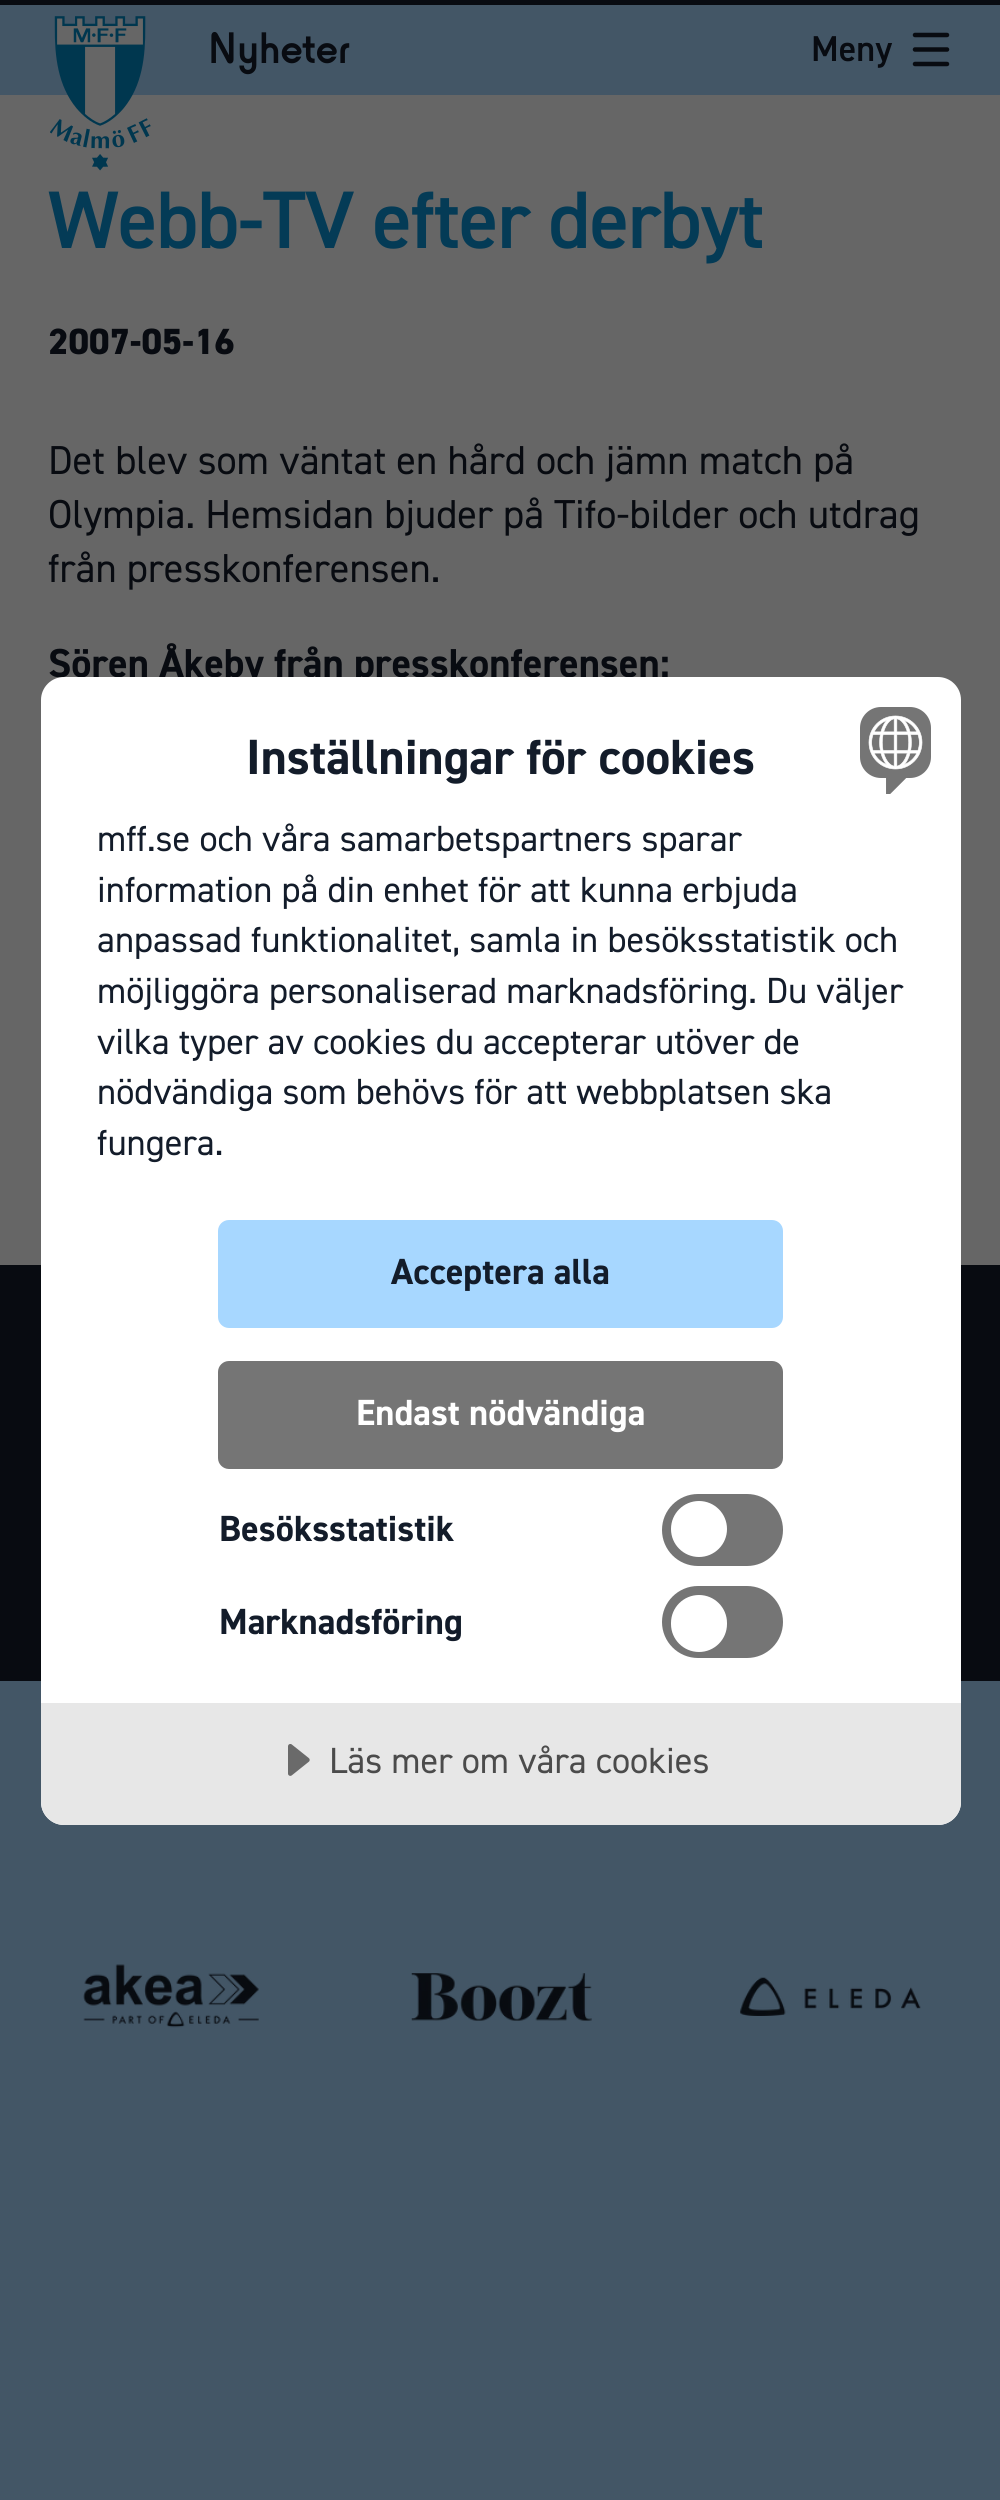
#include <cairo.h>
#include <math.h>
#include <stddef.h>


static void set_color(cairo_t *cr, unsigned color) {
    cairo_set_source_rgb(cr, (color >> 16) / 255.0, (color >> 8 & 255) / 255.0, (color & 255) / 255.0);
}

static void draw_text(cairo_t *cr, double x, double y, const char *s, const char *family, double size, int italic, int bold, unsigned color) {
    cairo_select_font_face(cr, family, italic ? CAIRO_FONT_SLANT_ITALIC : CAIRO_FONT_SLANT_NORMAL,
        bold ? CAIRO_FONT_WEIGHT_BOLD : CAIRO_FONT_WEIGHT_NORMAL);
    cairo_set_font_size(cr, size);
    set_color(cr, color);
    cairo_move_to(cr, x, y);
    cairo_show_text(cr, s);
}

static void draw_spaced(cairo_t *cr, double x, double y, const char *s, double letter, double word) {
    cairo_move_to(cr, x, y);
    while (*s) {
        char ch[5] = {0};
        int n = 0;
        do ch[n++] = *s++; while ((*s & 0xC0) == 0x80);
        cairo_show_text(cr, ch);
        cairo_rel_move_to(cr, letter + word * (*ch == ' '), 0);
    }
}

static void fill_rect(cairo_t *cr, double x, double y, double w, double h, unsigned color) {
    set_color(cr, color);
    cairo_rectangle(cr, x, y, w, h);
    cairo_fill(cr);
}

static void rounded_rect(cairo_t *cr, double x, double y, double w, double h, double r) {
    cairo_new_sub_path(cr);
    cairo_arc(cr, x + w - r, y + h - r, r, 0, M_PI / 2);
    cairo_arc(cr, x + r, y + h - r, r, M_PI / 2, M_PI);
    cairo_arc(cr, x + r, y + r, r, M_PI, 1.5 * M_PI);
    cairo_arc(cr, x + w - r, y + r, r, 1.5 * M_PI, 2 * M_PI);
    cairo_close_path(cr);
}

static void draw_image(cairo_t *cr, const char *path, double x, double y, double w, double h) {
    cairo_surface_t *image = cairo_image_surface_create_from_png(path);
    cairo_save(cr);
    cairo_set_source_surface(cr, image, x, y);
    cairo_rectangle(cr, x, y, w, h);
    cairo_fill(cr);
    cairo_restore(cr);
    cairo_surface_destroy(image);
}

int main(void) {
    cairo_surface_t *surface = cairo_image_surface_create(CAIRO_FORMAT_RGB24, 1000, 2500);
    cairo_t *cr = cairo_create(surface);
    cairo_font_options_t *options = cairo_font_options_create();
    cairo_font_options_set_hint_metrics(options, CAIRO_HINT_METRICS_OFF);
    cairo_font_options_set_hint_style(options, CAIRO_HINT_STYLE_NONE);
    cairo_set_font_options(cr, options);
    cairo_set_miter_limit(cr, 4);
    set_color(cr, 0x080B11);
    cairo_paint(cr);
    fill_rect(cr, 0, 5, 1000, 90, 0x435666);
    fill_rect(cr, 0, 95, 1000, 1170, 0x666666);
    draw_image(cr, "assets/img1.png", 50, 16, 101, 155);
    draw_text(cr, 208, 63, "Nyheter", "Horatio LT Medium", 46, 0, 0, 0x080B11);
    draw_text(cr, 811, 61, "Meny", "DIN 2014 SemiBold", 36, 0, 0, 0x080B11);
    cairo_new_path(cr);
    cairo_move_to(cr, 915, 64);
    cairo_line_to(cr, 947, 64);
    cairo_move_to(cr, 915, 35);
    cairo_line_to(cr, 947, 35);
    cairo_move_to(cr, 915, 49.5);
    cairo_line_to(cr, 947, 49.5);
    cairo_set_line_width(cr, 4.5);
    cairo_set_line_cap(cr, CAIRO_LINE_CAP_ROUND);
    cairo_set_line_join(cr, CAIRO_LINE_JOIN_ROUND);
    cairo_stroke(cr);
    cairo_set_font_size(cr, 81.75);
    set_color(cr, 0x043B56);
    draw_spaced(cr, 48, 248, "Webb-TV efter derbyt", -1.25, 0);
    draw_text(cr, 48, 354, "2007-05-16", "DIN 2014 ExtraBold", 36.5, 0, 0, 0x080B11);
    draw_text(cr, 48, 474, "Det blev som väntat en hård och jämn match på", "DIN 2014", 40.5, 0, 0, 0x080B11);
    draw_text(cr, 48, 528, "Olympia. Hemsidan bjuder på Tifo-bilder och utdrag", "DIN 2014", 40.5, 0, 0, 0x080B11);
    draw_text(cr, 48, 582, "från presskonferensen.", "DIN 2014", 40.5, 0, 0, 0x080B11);
    draw_text(cr, 48, 677, "Sören Åkeby från presskonferensen:", "DIN 2014", 40.5, 0, 1, 0x080B11);
    fill_rect(cr, 0, 1681, 1000, 819, 0x435666);
    set_color(cr, 0xFFFFFF);
    rounded_rect(cr, 41, 677, 920, 1148, 23);
    cairo_fill(cr);
    draw_image(cr, "assets/img2.png", 860, 707, 71, 87);
    draw_text(cr, 246, 774, "Inställningar för cookies", "DIN 2014", 49.6, 0, 1, 0x131C2A);
    draw_text(cr, 97, 851, "mff.se och våra samarbetspartners sparar", "DIN 2014", 36.45, 0, 0, 0x131C2A);
    draw_text(cr, 97, 902, "information på din enhet för att kunna erbjuda", "DIN 2014", 36.45, 0, 0, 0x131C2A);
    draw_text(cr, 97, 952, "anpassad funktionalitet, samla in besöksstatistik och", "DIN 2014", 36.45, 0, 0, 0x131C2A);
    draw_text(cr, 97, 1003, "möjliggöra personaliserad marknadsföring. Du väljer", "DIN 2014", 36.45, 0, 0, 0x131C2A);
    draw_text(cr, 97, 1054, "vilka typer av cookies du accepterar utöver de", "DIN 2014", 36.45, 0, 0, 0x131C2A);
    draw_text(cr, 97, 1104, "nödvändiga som behövs för att webbplatsen ska", "DIN 2014", 36.45, 0, 0, 0x131C2A);
    draw_text(cr, 97, 1155, "fungera.", "DIN 2014", 36.45, 0, 0, 0x131C2A);
    set_color(cr, 0xA7D7FF);
    rounded_rect(cr, 218, 1220, 565, 108, 11);
    cairo_fill(cr);
    draw_text(cr, 391, 1284, "Acceptera alla", "DIN 2014", 36.45, 0, 1, 0x131C2A);
    set_color(cr, 0x757575);
    rounded_rect(cr, 218, 1361, 565, 108, 11);
    cairo_fill(cr);
    draw_text(cr, 356, 1425, "Endast nödvändiga", "DIN 2014", 36.45, 0, 1, 0xFFFFFF);
    draw_text(cr, 219, 1541, "Besöksstatistik", "DIN 2014", 36.45, 0, 1, 0x131C2A);
    set_color(cr, 0x757575);
    rounded_rect(cr, 662, 1494, 121, 72, 36);
    cairo_fill(cr);
    set_color(cr, 0xFFFFFF);
    cairo_arc(cr, 699, 1529, 28, 0, 2 * M_PI);
    cairo_fill(cr);
    draw_text(cr, 219, 1634, "Marknadsföring", "DIN 2014", 36.45, 0, 1, 0x131C2A);
    set_color(cr, 0x757575);
    rounded_rect(cr, 662, 1586, 121, 72, 36);
    cairo_fill(cr);
    set_color(cr, 0xFFFFFF);
    rounded_rect(cr, 671, 1595, 56, 57, 28);
    cairo_fill(cr);
    set_color(cr, 0xE7E7E7);
    cairo_new_path(cr);
    cairo_move_to(cr, 41, 1703);
    cairo_line_to(cr, 961, 1703);
    cairo_line_to(cr, 961, 1802);
    cairo_curve_to(cr, 961, 1814.5, 950.5, 1825, 938, 1825);
    cairo_line_to(cr, 64, 1825);
    cairo_curve_to(cr, 51.5, 1825, 41, 1814.5, 41, 1802);
    cairo_close_path(cr);
    cairo_fill(cr);
    draw_image(cr, "assets/img3.png", 288, 1744, 22, 32);
    draw_text(cr, 329, 1773, "Läs mer om våra cookies", "DIN 2014", 36.45, 0, 0, 0x4B4B4B);
    draw_image(cr, "assets/img4.png", 83, 1964, 176, 64);
    draw_image(cr, "assets/img5.png", 411, 1973, 181, 48);
    draw_image(cr, "assets/img6.png", 740, 1977, 181, 39);
    cairo_surface_write_to_png(surface, "output.png");
    cairo_font_options_destroy(options);
    cairo_destroy(cr);
    cairo_surface_destroy(surface);
    return 0;
}
